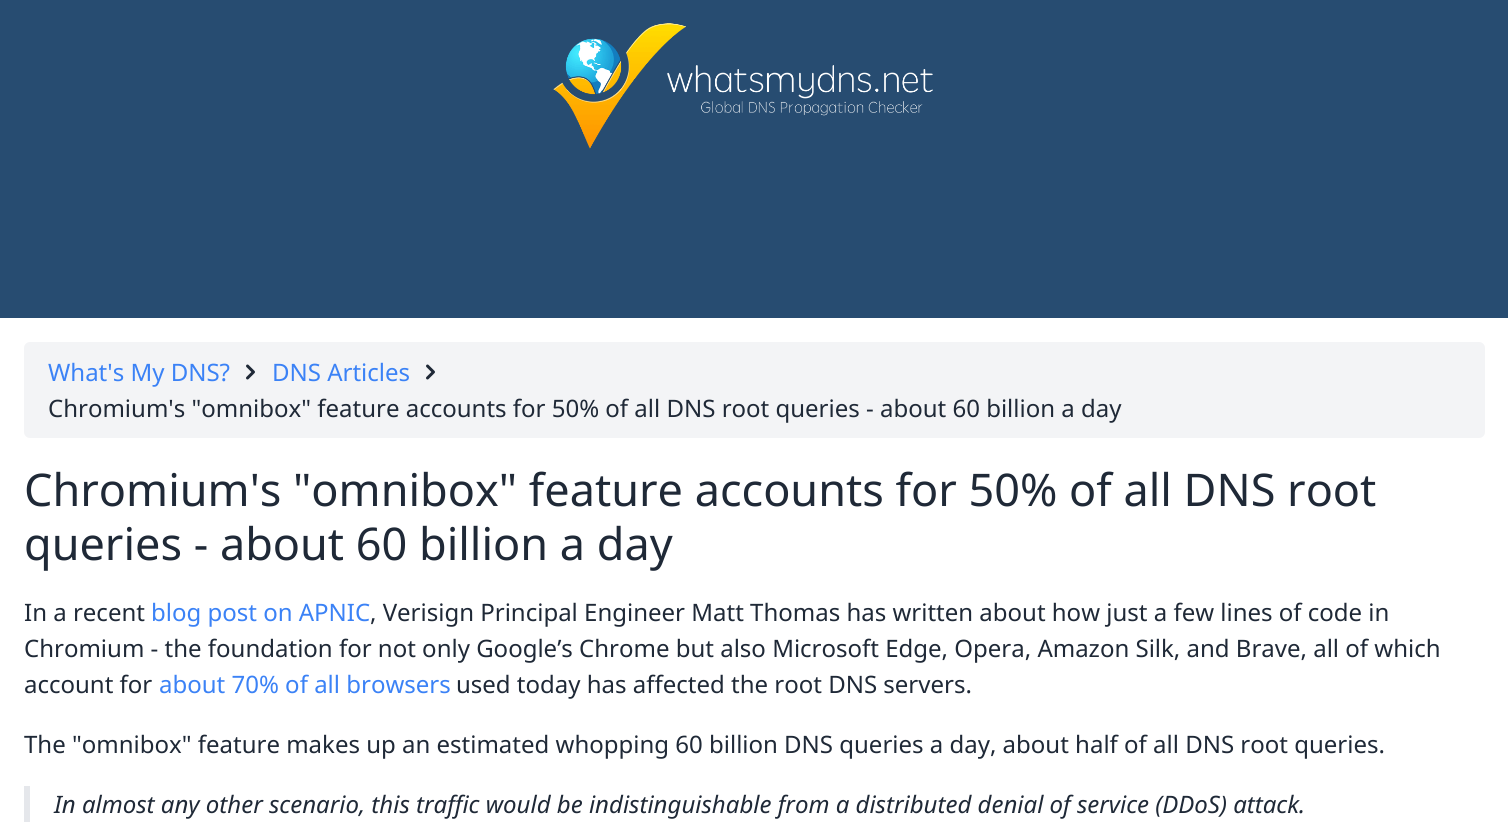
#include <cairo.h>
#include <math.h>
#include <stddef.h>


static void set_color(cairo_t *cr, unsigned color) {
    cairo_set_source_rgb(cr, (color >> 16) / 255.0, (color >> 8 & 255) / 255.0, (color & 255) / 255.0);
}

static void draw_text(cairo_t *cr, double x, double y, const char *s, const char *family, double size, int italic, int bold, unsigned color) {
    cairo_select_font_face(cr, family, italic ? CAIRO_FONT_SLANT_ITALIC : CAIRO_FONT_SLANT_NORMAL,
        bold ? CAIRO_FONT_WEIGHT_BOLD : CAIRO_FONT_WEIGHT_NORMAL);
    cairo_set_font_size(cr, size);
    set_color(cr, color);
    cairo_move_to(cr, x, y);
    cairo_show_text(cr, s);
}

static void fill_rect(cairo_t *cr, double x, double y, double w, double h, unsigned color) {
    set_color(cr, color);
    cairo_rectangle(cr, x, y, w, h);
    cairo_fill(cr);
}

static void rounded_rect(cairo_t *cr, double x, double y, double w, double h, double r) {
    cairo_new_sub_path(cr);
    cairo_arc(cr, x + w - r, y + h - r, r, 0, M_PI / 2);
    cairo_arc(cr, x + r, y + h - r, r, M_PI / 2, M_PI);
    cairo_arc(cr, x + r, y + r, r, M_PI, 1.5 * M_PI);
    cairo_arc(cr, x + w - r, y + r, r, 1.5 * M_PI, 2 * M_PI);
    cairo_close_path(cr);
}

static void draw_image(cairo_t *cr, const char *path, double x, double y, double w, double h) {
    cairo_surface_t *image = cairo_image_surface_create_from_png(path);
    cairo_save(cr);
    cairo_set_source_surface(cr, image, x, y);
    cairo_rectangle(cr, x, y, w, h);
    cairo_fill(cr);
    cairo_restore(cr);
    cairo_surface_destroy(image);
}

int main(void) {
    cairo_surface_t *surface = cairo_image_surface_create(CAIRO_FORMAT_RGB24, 1508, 839);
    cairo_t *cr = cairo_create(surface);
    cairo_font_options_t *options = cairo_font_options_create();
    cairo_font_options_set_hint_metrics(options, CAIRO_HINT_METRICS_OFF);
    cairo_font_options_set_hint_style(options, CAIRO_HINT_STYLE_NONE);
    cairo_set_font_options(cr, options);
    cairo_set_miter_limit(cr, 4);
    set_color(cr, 0x274C71);
    cairo_paint(cr);
    draw_image(cr, "assets/img1.png", 553, 23, 380, 126);
    fill_rect(cr, 0, 318, 1508, 521, 0xFFFFFF);
    set_color(cr, 0xF3F4F6);
    rounded_rect(cr, 24, 342, 1461, 96, 6);
    cairo_fill(cr);
    draw_text(cr, 48, 381, "What's My DNS?", "Noto Sans", 24, 0, 0, 0x3B82F6);
    draw_image(cr, "assets/img2.png", 246, 364, 9, 16);
    draw_text(cr, 272, 381, "DNS Articles", "Noto Sans", 24, 0, 0, 0x3B82F6);
    draw_image(cr, "assets/img2.png", 426, 364, 9, 16);
    draw_text(cr, 48, 417, "Chromium's \"omnibox\" feature accounts for 50% of all DNS root queries - about 60 billion a day", "Noto Sans", 24, 0, 0, 0x1F2937);
    draw_text(cr, 24, 506, "Chromium's \"omnibox\" feature accounts for 50% of all DNS root", "Noto Sans", 45, 0, 0, 0x1F2937);
    draw_text(cr, 24, 560, "queries - about 60 billion a day", "Noto Sans", 45, 0, 0, 0x1F2937);
    draw_text(cr, 24, 621, "In a recent", "Noto Sans", 24, 0, 0, 0x1F2937);
    draw_text(cr, 151, 621, "blog post on APNIC", "Noto Sans", 24, 0, 0, 0x3B82F6);
    draw_text(cr, 370, 621, ", Verisign Principal Engineer Matt Thomas has written about how just a few lines of code in", "Noto Sans", 24, 0, 0, 0x1F2937);
    draw_text(cr, 24, 657, "Chromium - the foundation for not only Google’s Chrome but also Microsoft Edge, Opera, Amazon Silk, and Brave, all of which", "Noto Sans", 24, 0, 0, 0x1F2937);
    draw_text(cr, 24, 693, "account for", "Noto Sans", 24, 0, 0, 0x1F2937);
    draw_text(cr, 159, 693, "about 70% of all browsers", "Noto Sans", 24, 0, 0, 0x3B82F6);
    draw_text(cr, 456, 693, "used today has affected the root DNS servers.", "Noto Sans", 24, 0, 0, 0x1F2937);
    draw_text(cr, 24, 753, "The \"omnibox\" feature makes up an estimated whopping 60 billion DNS queries a day, about half of all DNS root queries.", "Noto Sans", 24, 0, 0, 0x1F2937);
    fill_rect(cr, 24, 786, 6, 36, 0xE5E7EB);
    draw_text(cr, 54, 813, "In almost any other scenario, this traffic would be indistinguishable from a distributed denial of service (DDoS) attack.", "Noto Sans", 24, 1, 0, 0x1F2937);
    cairo_surface_write_to_png(surface, "output.png");
    cairo_font_options_destroy(options);
    cairo_destroy(cr);
    cairo_surface_destroy(surface);
    return 0;
}
